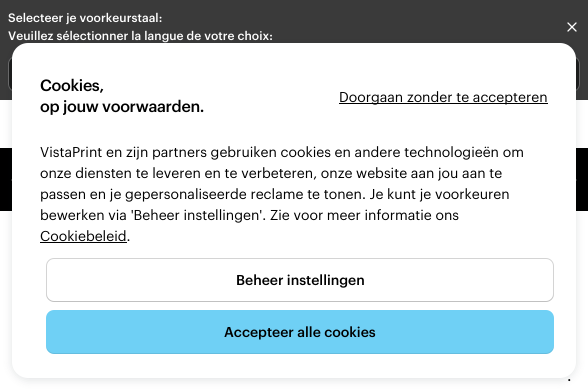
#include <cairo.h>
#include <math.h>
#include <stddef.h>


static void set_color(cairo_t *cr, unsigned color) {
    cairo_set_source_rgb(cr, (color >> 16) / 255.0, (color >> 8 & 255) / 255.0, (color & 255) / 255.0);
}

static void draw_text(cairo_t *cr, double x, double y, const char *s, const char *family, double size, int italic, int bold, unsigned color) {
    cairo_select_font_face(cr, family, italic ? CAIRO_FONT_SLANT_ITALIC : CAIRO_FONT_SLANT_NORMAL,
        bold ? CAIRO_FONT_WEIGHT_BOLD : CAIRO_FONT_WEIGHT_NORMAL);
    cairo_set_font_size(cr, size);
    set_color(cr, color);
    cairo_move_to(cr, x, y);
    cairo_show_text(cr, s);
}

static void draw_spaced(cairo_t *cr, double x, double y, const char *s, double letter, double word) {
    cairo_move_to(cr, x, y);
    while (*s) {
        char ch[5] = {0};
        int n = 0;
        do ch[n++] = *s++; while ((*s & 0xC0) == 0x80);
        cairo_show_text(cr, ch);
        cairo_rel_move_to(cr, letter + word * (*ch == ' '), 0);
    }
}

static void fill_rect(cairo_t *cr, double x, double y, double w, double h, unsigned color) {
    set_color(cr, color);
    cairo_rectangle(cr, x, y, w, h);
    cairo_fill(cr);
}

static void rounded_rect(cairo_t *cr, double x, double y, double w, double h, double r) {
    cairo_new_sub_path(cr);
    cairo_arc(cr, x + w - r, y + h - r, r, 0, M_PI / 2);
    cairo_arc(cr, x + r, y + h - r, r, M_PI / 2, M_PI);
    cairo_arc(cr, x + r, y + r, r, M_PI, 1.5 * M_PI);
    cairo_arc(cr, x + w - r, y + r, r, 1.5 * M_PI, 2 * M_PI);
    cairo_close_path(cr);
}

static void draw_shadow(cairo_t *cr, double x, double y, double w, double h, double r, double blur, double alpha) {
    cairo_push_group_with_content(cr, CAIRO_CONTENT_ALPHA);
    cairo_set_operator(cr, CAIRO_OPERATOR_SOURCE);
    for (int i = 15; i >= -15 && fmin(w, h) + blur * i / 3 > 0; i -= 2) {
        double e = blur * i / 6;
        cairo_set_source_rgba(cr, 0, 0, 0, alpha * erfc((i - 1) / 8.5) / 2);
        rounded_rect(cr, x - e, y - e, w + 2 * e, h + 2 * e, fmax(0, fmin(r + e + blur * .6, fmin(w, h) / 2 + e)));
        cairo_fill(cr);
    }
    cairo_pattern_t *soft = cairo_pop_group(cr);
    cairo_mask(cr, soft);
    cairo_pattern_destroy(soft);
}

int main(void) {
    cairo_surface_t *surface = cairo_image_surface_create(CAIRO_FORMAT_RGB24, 588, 390);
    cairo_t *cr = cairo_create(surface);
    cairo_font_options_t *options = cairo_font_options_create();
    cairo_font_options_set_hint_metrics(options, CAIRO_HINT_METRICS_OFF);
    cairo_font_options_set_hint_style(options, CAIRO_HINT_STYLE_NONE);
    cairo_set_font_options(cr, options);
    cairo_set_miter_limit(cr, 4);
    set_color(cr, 0xFFFFFF);
    cairo_paint(cr);
    fill_rect(cr, 0, 0, 588, 100, 0x3A3A3A);
    cairo_select_font_face(cr, "Graphik Medium", CAIRO_FONT_SLANT_NORMAL, CAIRO_FONT_WEIGHT_NORMAL);
    cairo_set_font_size(cr, 12);
    set_color(cr, 0xFFFFFF);
    draw_spaced(cr, 8, 22, "Selecteer je voorkeurstaal:", 0.05, 0);
    draw_spaced(cr, 8, 40, "Veuillez sélectionner la langue de votre choix:", 0.05, 0);
    cairo_new_path(cr);
    cairo_move_to(cr, 576, 23);
    cairo_line_to(cr, 568, 31);
    cairo_move_to(cr, 568, 23);
    cairo_line_to(cr, 576, 31);
    cairo_set_line_width(cr, 1.3);
    cairo_set_line_cap(cr, CAIRO_LINE_CAP_ROUND);
    cairo_set_line_join(cr, CAIRO_LINE_JOIN_ROUND);
    cairo_stroke(cr);
    set_color(cr, 0x1D1D1D);
    rounded_rect(cr, 8, 56, 280, 36, 8);
    cairo_fill(cr);
    rounded_rect(cr, 8.5, 56.5, 279, 35, 7.5);
    cairo_set_source_rgba(cr, 1, 1, 1, 0.35);
    cairo_set_line_width(cr, 1);
    cairo_set_line_cap(cr, CAIRO_LINE_CAP_BUTT);
    cairo_set_line_join(cr, CAIRO_LINE_JOIN_MITER);
    cairo_stroke(cr);
    cairo_set_source_rgba(cr, 0, 0, 0, 0.09);
    cairo_new_path(cr);
    cairo_move_to(cr, 8, 83);
    cairo_line_to(cr, 8, 84);
    cairo_curve_to(cr, 8, 88, 12, 92, 16, 92);
    cairo_line_to(cr, 280, 92);
    cairo_curve_to(cr, 284, 92, 288, 88, 288, 84);
    cairo_line_to(cr, 288, 83);
    cairo_curve_to(cr, 288, 87, 284, 91, 280, 91);
    cairo_line_to(cr, 16, 91);
    cairo_curve_to(cr, 12, 91, 8, 87, 8, 83);
    cairo_close_path(cr);
    cairo_fill(cr);
    set_color(cr, 0x1D1D1D);
    rounded_rect(cr, 300, 56, 280, 36, 8);
    cairo_fill(cr);
    rounded_rect(cr, 300.5, 56.5, 279, 35, 7.5);
    cairo_set_source_rgba(cr, 1, 1, 1, 0.35);
    cairo_stroke(cr);
    cairo_set_source_rgba(cr, 0, 0, 0, 0.09);
    cairo_new_path(cr);
    cairo_move_to(cr, 300, 83);
    cairo_line_to(cr, 300, 84);
    cairo_curve_to(cr, 300, 88, 304, 92, 308, 92);
    cairo_line_to(cr, 572, 92);
    cairo_curve_to(cr, 576, 92, 580, 88, 580, 84);
    cairo_line_to(cr, 580, 83);
    cairo_curve_to(cr, 580, 87, 576, 91, 572, 91);
    cairo_line_to(cr, 308, 91);
    cairo_curve_to(cr, 304, 91, 300, 87, 300, 83);
    cairo_close_path(cr);
    cairo_fill(cr);
    fill_rect(cr, 0, 148, 588, 63, 0x000000);
    cairo_new_path(cr);
    cairo_move_to(cr, 17.5, 185);
    cairo_line_to(cr, 12.5, 180);
    cairo_line_to(cr, 17.5, 175);
    set_color(cr, 0xFFFFFF);
    cairo_set_line_width(cr, 1.7);
    cairo_set_line_cap(cr, CAIRO_LINE_CAP_ROUND);
    cairo_set_line_join(cr, CAIRO_LINE_JOIN_ROUND);
    cairo_stroke(cr);
    cairo_new_path(cr);
    cairo_move_to(cr, 570.5, 185);
    cairo_line_to(cr, 575.5, 180);
    cairo_line_to(cr, 570.5, 175);
    cairo_stroke(cr);
    draw_text(cr, 567, 381, ".", "Graphik", 16, 0, 0, 0x000000);
    set_color(cr, 0x00111A);
    draw_shadow(cr, 12, 45, 564, 335, 16, 5, 0.12);
    set_color(cr, 0xFFFFFF);
    rounded_rect(cr, 12, 43, 564, 335, 16);
    cairo_fill(cr);
    cairo_select_font_face(cr, "Graphik Medium", CAIRO_FONT_SLANT_NORMAL, CAIRO_FONT_WEIGHT_NORMAL);
    set_color(cr, 0x000000);
    draw_spaced(cr, 40, 91, "Cookies,", -0.3, 0);
    draw_spaced(cr, 40, 112, "op jouw voorwaarden.", -0.3, 0);
    fill_rect(cr, 339, 103, 209, 1, 0x000000);
    draw_text(cr, 339, 102, "Doorgaan zonder te accepteren", "Graphik", 14, 0, 0, 0x000000);
    draw_text(cr, 40, 157, "VistaPrint en zijn partners gebruiken cookies en andere technologieën om", "Graphik", 14, 0, 0, 0x000000);
    draw_text(cr, 40, 178, "onze diensten te leveren en te verbeteren, onze website aan jou aan te", "Graphik", 14, 0, 0, 0x000000);
    draw_text(cr, 40, 199, "passen en je gepersonaliseerde reclame te tonen. Je kunt je voorkeuren", "Graphik", 14, 0, 0, 0x000000);
    draw_text(cr, 40, 220, "bewerken via 'Beheer instellingen'. Zie voor meer informatie ons", "Graphik", 14, 0, 0, 0x000000);
    draw_text(cr, 40, 241, "Cookiebeleid.", "Graphik", 14, 0, 0, 0x000000);
    fill_rect(cr, 40, 242, 87, 1, 0x000000);
    rounded_rect(cr, 46.5, 258.5, 507, 43, 7.5);
    set_color(cr, 0xD4D4D4);
    cairo_set_line_width(cr, 1);
    cairo_set_line_cap(cr, CAIRO_LINE_CAP_BUTT);
    cairo_set_line_join(cr, CAIRO_LINE_JOIN_MITER);
    cairo_stroke(cr);
    cairo_set_source_rgba(cr, 0, 0, 0, 0.09);
    cairo_new_path(cr);
    cairo_move_to(cr, 46, 293);
    cairo_line_to(cr, 46, 294);
    cairo_curve_to(cr, 46, 298, 50, 302, 54, 302);
    cairo_line_to(cr, 546, 302);
    cairo_curve_to(cr, 550, 302, 554, 298, 554, 294);
    cairo_line_to(cr, 554, 293);
    cairo_curve_to(cr, 554, 297, 550, 301, 546, 301);
    cairo_line_to(cr, 54, 301);
    cairo_curve_to(cr, 50, 301, 46, 297, 46, 293);
    cairo_close_path(cr);
    cairo_fill(cr);
    draw_text(cr, 236, 285, "Beheer instellingen", "Graphik Medium", 14, 0, 0, 0x000000);
    set_color(cr, 0x6FD0F5);
    rounded_rect(cr, 46, 310, 508, 44, 8);
    cairo_fill(cr);
    cairo_set_source_rgba(cr, 0, 0, 0, 0.09);
    cairo_new_path(cr);
    cairo_move_to(cr, 46, 345);
    cairo_line_to(cr, 46, 346);
    cairo_curve_to(cr, 46, 350, 50, 354, 54, 354);
    cairo_line_to(cr, 546, 354);
    cairo_curve_to(cr, 550, 354, 554, 350, 554, 346);
    cairo_line_to(cr, 554, 345);
    cairo_curve_to(cr, 554, 349, 550, 353, 546, 353);
    cairo_line_to(cr, 54, 353);
    cairo_curve_to(cr, 50, 353, 46, 349, 46, 345);
    cairo_close_path(cr);
    cairo_fill(cr);
    draw_text(cr, 224, 337, "Accepteer alle cookies", "Graphik Medium", 14, 0, 0, 0x000000);
    cairo_surface_write_to_png(surface, "output.png");
    cairo_font_options_destroy(options);
    cairo_destroy(cr);
    cairo_surface_destroy(surface);
    return 0;
}
